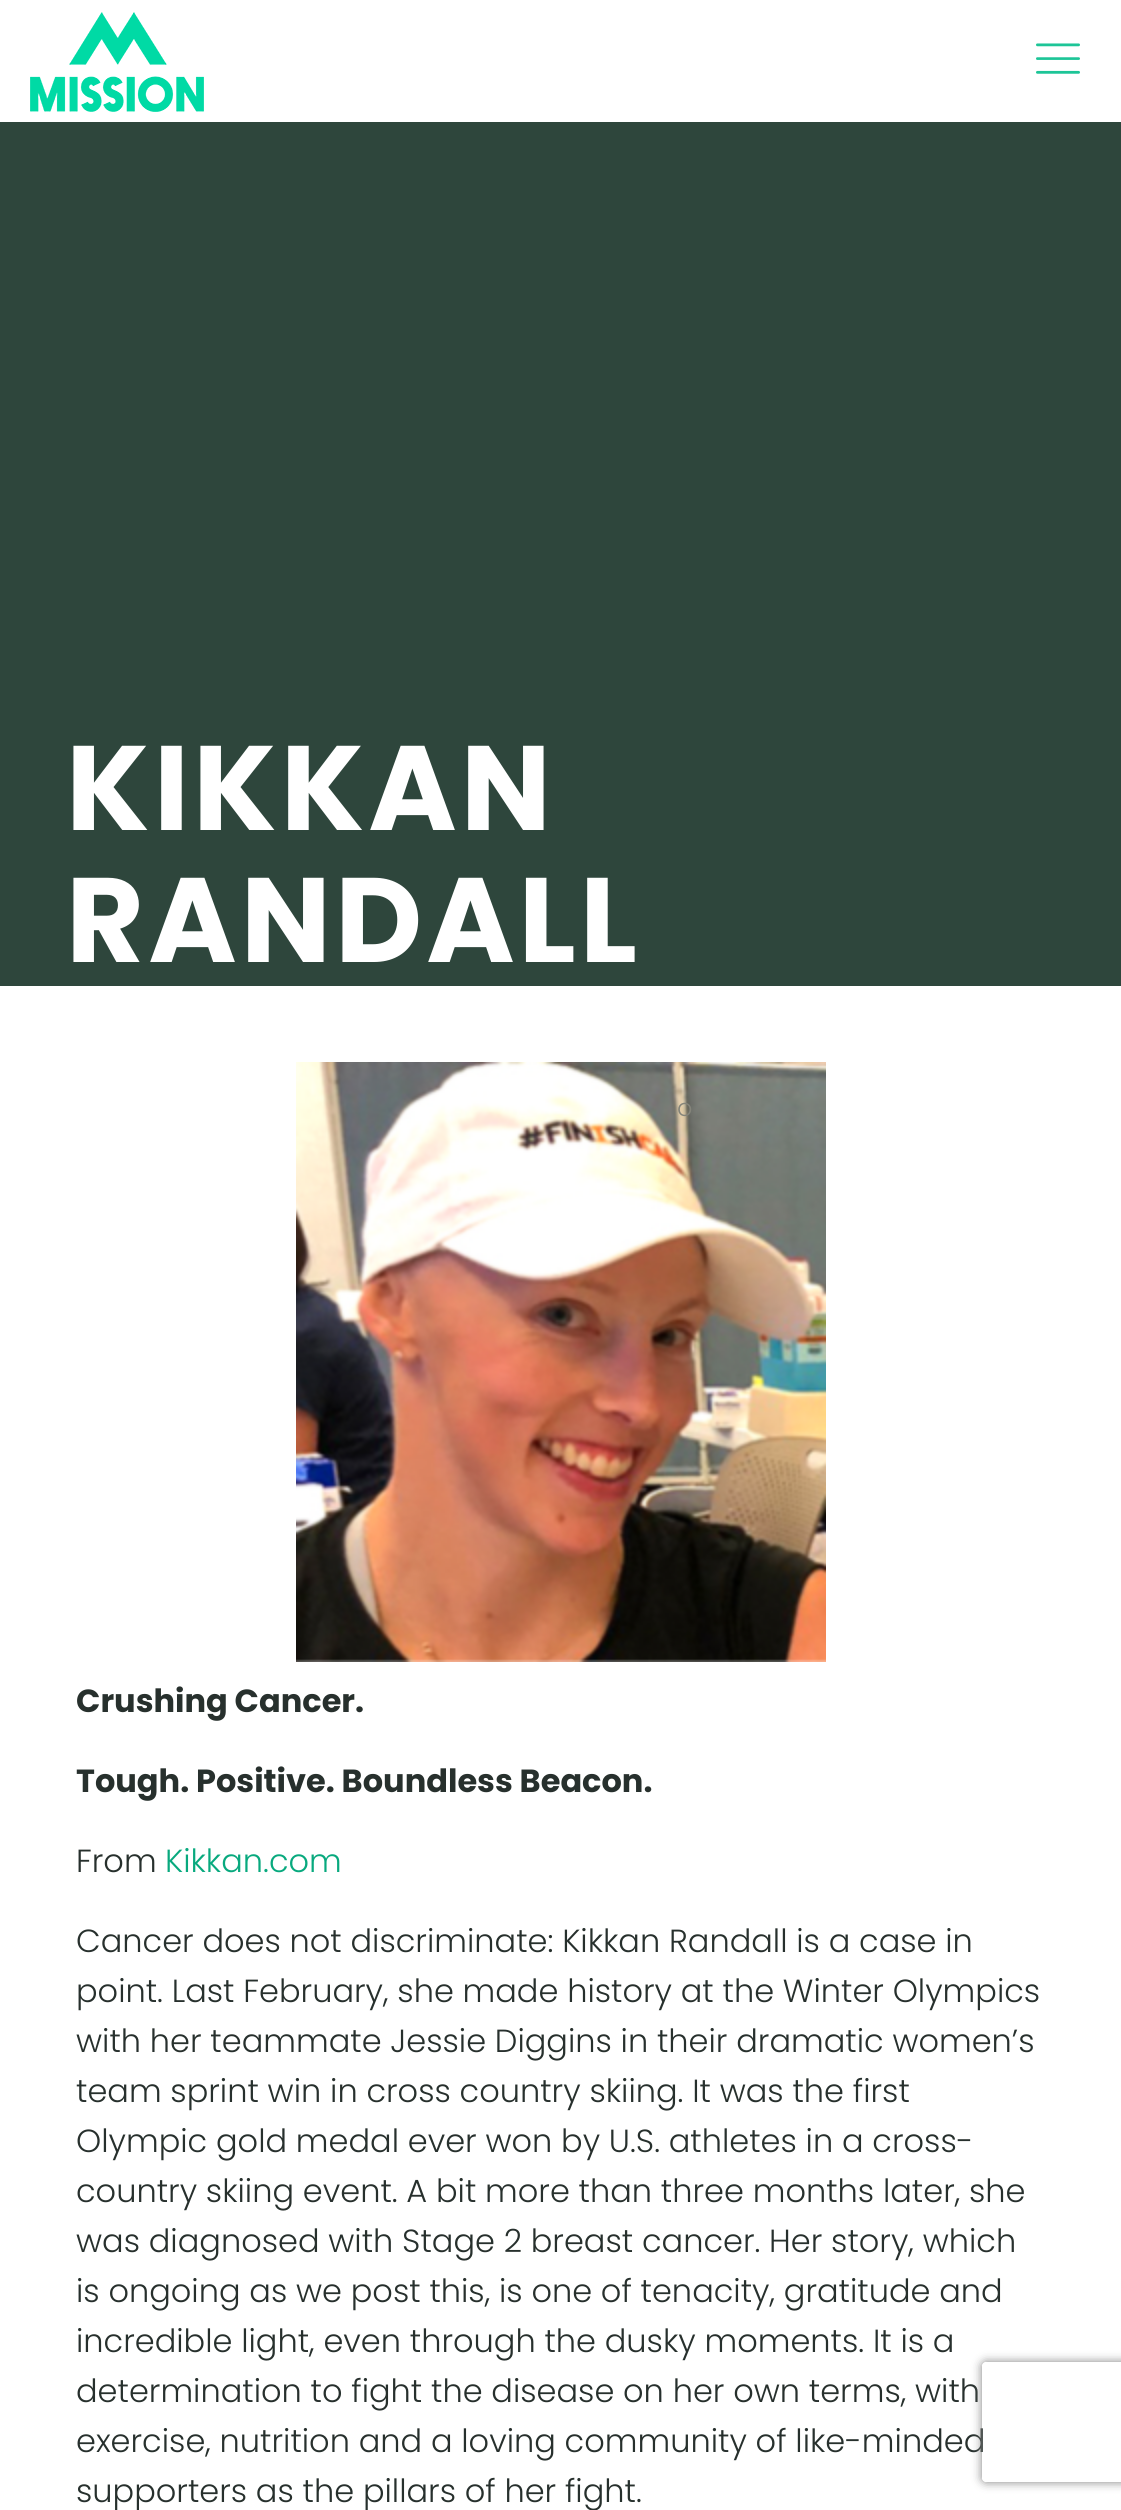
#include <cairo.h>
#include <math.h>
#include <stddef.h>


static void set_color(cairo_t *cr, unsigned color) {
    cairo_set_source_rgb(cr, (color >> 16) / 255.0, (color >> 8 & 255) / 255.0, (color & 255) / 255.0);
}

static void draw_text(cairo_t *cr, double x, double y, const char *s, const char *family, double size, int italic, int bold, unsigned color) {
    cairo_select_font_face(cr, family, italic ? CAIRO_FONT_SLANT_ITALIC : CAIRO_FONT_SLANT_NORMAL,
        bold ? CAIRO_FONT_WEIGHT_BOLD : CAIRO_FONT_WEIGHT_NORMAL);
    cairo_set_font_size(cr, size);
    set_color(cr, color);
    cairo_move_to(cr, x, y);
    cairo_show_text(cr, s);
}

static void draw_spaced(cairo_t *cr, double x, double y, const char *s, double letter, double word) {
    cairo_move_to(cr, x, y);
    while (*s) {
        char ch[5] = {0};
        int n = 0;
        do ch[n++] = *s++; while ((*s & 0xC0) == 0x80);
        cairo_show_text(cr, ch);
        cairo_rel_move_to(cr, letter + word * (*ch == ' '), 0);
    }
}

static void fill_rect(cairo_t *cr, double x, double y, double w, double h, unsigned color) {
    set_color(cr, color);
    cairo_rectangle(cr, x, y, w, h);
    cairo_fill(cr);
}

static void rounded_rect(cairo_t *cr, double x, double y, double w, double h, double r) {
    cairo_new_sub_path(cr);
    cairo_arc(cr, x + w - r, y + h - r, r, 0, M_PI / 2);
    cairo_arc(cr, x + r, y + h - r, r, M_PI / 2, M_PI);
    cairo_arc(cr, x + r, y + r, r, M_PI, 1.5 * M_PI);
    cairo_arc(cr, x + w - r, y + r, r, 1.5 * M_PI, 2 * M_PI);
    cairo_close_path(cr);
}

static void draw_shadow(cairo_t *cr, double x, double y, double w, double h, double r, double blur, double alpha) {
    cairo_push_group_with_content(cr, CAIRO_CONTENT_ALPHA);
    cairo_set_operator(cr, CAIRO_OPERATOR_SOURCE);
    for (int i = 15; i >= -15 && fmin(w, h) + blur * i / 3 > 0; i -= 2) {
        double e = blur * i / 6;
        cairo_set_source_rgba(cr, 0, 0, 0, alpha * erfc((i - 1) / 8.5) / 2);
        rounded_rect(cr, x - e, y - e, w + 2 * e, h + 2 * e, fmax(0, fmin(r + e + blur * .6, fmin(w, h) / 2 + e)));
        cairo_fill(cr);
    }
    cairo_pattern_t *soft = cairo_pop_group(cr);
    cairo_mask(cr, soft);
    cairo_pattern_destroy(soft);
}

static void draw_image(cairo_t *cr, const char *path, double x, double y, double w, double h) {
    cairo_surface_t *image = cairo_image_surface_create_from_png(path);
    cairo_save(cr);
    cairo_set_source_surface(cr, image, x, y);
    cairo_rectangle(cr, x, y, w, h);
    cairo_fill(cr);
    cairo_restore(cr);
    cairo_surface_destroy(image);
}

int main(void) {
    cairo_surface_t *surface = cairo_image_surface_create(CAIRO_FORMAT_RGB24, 1121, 2510);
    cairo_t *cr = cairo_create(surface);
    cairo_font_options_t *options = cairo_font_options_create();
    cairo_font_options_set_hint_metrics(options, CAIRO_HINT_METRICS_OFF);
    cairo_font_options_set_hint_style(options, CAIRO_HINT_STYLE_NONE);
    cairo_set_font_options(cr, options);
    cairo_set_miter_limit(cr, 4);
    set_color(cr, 0xFFFFFF);
    cairo_paint(cr);
    draw_image(cr, "assets/img1.png", 30, 12, 174, 100);
    draw_image(cr, "assets/img2.png", 1036, 43, 44, 31);
    fill_rect(cr, 0, 122, 1121, 864, 0x2E463C);
    cairo_select_font_face(cr, "Poppins", CAIRO_FONT_SLANT_NORMAL, CAIRO_FONT_WEIGHT_BOLD);
    cairo_set_font_size(cr, 120);
    set_color(cr, 0xFFFFFF);
    draw_spaced(cr, 66, 830, "KIKKAN", 4, 0);
    draw_spaced(cr, 66, 962, "RANDALL", 4, 0);
    draw_image(cr, "assets/img3.png", 296, 1062, 530, 600);
    draw_text(cr, 677, 1116, "o", "Poppins Light", 24, 0, 0, 0x84847A);
    draw_text(cr, 76, 1712, "Crushing Cancer.", "Poppins", 32, 0, 1, 0x27302D);
    draw_text(cr, 76, 1792, "Tough. Positive. Boundless Beacon.", "Poppins", 32, 0, 1, 0x27302D);
    draw_text(cr, 76, 1872, "From", "Poppins Light", 32, 0, 0, 0x27302D);
    draw_text(cr, 165, 1872, "Kikkan.com", "Poppins Light", 32, 0, 0, 0x08A97E);
    draw_text(cr, 76, 1952, "Cancer does not discriminate: Kikkan Randall is a case in", "Poppins Light", 32, 0, 0, 0x27302D);
    draw_text(cr, 76, 2002, "point. Last February, she made history at the Winter Olympics", "Poppins Light", 32, 0, 0, 0x27302D);
    draw_text(cr, 76, 2052, "with her teammate Jessie Diggins in their dramatic women’s", "Poppins Light", 32, 0, 0, 0x27302D);
    draw_text(cr, 76, 2102, "team sprint win in cross country skiing. It was the first", "Poppins Light", 32, 0, 0, 0x27302D);
    draw_text(cr, 76, 2152, "Olympic gold medal ever won by U.S. athletes in a cross-", "Poppins Light", 32, 0, 0, 0x27302D);
    draw_text(cr, 76, 2202, "country skiing event. A bit more than three months later, she", "Poppins Light", 32, 0, 0, 0x27302D);
    draw_text(cr, 76, 2252, "was diagnosed with Stage 2 breast cancer. Her story, which", "Poppins Light", 32, 0, 0, 0x27302D);
    draw_text(cr, 76, 2302, "is ongoing as we post this, is one of tenacity, gratitude and", "Poppins Light", 32, 0, 0, 0x27302D);
    draw_text(cr, 76, 2352, "incredible light, even through the dusky moments. It is a", "Poppins Light", 32, 0, 0, 0x27302D);
    draw_text(cr, 76, 2402, "determination to fight the disease on her own terms, with", "Poppins Light", 32, 0, 0, 0x27302D);
    draw_text(cr, 76, 2452, "exercise, nutrition and a loving community of like-minded", "Poppins Light", 32, 0, 0, 0x27302D);
    draw_text(cr, 76, 2502, "supporters as the pillars of her fight.", "Poppins Light", 32, 0, 0, 0x27302D);
    cairo_save(cr);
    cairo_set_fill_rule(cr, CAIRO_FILL_RULE_EVEN_ODD);
    cairo_new_path(cr);
    cairo_move_to(cr, 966, 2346);
    cairo_line_to(cr, 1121, 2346);
    cairo_line_to(cr, 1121, 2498);
    cairo_line_to(cr, 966, 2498);
    cairo_close_path(cr);
    cairo_move_to(cr, 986, 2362);
    cairo_line_to(cr, 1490, 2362);
    cairo_curve_to(cr, 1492, 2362, 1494, 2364, 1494, 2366);
    cairo_line_to(cr, 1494, 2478);
    cairo_curve_to(cr, 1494, 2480, 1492, 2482, 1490, 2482);
    cairo_line_to(cr, 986, 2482);
    cairo_curve_to(cr, 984, 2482, 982, 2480, 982, 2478);
    cairo_line_to(cr, 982, 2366);
    cairo_curve_to(cr, 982, 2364, 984, 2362, 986, 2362);
    cairo_close_path(cr);
    cairo_clip(cr);
    set_color(cr, 0x808080);
    draw_shadow(cr, 982, 2362, 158, 120, 4, 5, 1);
    cairo_restore(cr);
    cairo_surface_write_to_png(surface, "output.png");
    cairo_font_options_destroy(options);
    cairo_destroy(cr);
    cairo_surface_destroy(surface);
    return 0;
}
